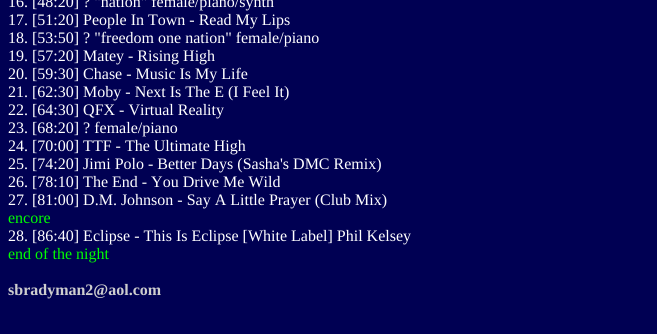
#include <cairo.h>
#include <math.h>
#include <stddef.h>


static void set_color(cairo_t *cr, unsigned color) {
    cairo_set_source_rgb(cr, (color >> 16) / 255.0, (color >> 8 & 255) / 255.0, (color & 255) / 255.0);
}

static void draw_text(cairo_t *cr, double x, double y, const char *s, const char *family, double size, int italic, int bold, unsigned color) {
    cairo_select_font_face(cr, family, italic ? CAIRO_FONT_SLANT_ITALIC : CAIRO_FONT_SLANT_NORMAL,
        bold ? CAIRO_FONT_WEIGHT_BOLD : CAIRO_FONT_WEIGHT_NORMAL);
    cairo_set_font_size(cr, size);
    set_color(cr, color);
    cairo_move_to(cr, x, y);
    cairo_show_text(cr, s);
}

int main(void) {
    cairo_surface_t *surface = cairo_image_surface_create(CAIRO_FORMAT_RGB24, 657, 334);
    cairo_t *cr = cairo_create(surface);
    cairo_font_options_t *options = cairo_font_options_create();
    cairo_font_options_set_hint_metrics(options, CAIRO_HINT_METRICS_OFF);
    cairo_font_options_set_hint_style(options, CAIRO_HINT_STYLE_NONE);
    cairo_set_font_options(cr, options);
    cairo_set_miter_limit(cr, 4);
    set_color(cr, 0x000053);
    cairo_paint(cr);
    draw_text(cr, 8, 7, "16. [48:20] ? \"nation\" female/piano/synth", "Liberation Serif", 16, 0, 0, 0xFFFFFF);
    draw_text(cr, 8, 25, "17. [51:20] People In Town - Read My Lips", "Liberation Serif", 16, 0, 0, 0xFFFFFF);
    draw_text(cr, 8, 43, "18. [53:50] ? \"freedom one nation\" female/piano", "Liberation Serif", 16, 0, 0, 0xFFFFFF);
    draw_text(cr, 8, 61, "19. [57:20] Matey - Rising High", "Liberation Serif", 16, 0, 0, 0xFFFFFF);
    draw_text(cr, 8, 79, "20. [59:30] Chase - Music Is My Life", "Liberation Serif", 16, 0, 0, 0xFFFFFF);
    draw_text(cr, 8, 97, "21. [62:30] Moby - Next Is The E (I Feel It)", "Liberation Serif", 16, 0, 0, 0xFFFFFF);
    draw_text(cr, 8, 115, "22. [64:30] QFX - Virtual Reality", "Liberation Serif", 16, 0, 0, 0xFFFFFF);
    draw_text(cr, 8, 133, "23. [68:20] ? female/piano", "Liberation Serif", 16, 0, 0, 0xFFFFFF);
    draw_text(cr, 8, 151, "24. [70:00] TTF - The Ultimate High", "Liberation Serif", 16, 0, 0, 0xFFFFFF);
    draw_text(cr, 8, 169, "25. [74:20] Jimi Polo - Better Days (Sasha's DMC Remix)", "Liberation Serif", 16, 0, 0, 0xFFFFFF);
    draw_text(cr, 8, 187, "26. [78:10] The End - You Drive Me Wild", "Liberation Serif", 16, 0, 0, 0xFFFFFF);
    draw_text(cr, 8, 205, "27. [81:00] D.M. Johnson - Say A Little Prayer (Club Mix)", "Liberation Serif", 16, 0, 0, 0xFFFFFF);
    draw_text(cr, 8, 223, "encore", "Liberation Serif", 16, 0, 0, 0x00FF00);
    draw_text(cr, 8, 241, "28. [86:40] Eclipse - This Is Eclipse [White Label] Phil Kelsey", "Liberation Serif", 16, 0, 0, 0xFFFFFF);
    draw_text(cr, 8, 259, "end of the night", "Liberation Serif", 16, 0, 0, 0x00FF00);
    draw_text(cr, 8, 295, "sbradyman2@aol.com", "Liberation Serif", 16, 0, 1, 0xCECECE);
    cairo_surface_write_to_png(surface, "output.png");
    cairo_font_options_destroy(options);
    cairo_destroy(cr);
    cairo_surface_destroy(surface);
    return 0;
}
